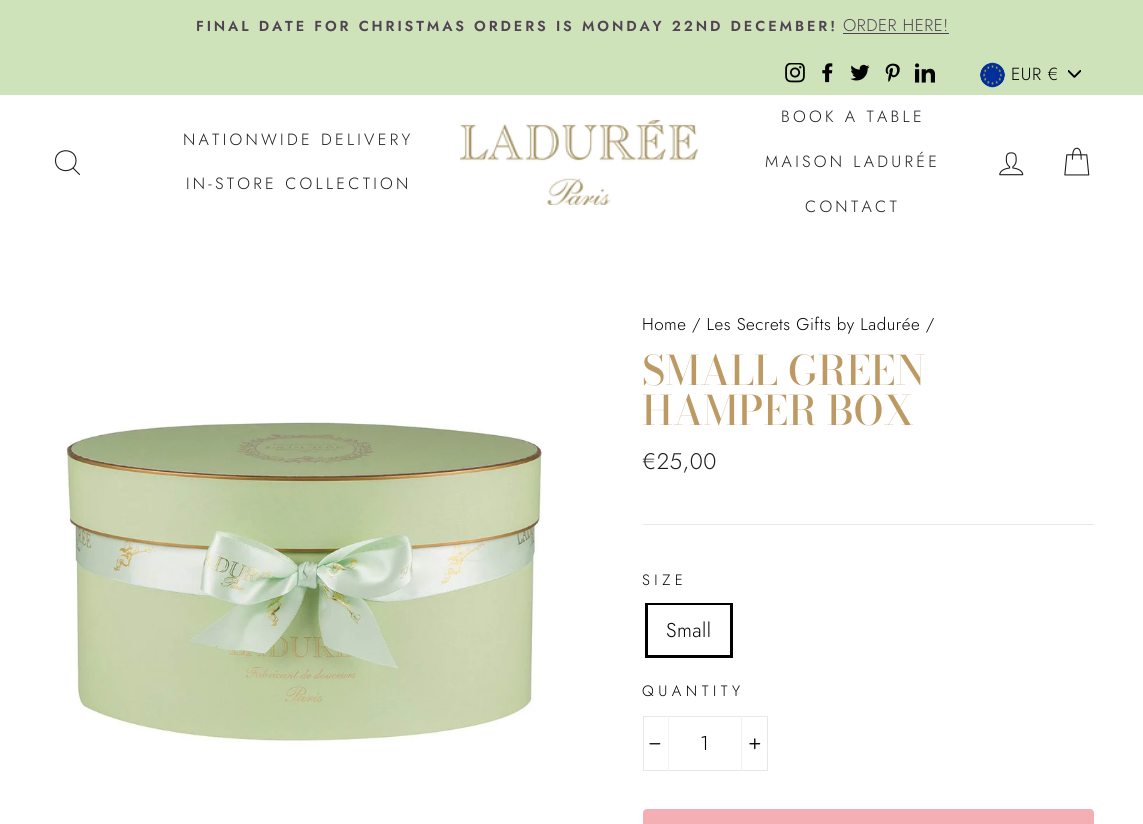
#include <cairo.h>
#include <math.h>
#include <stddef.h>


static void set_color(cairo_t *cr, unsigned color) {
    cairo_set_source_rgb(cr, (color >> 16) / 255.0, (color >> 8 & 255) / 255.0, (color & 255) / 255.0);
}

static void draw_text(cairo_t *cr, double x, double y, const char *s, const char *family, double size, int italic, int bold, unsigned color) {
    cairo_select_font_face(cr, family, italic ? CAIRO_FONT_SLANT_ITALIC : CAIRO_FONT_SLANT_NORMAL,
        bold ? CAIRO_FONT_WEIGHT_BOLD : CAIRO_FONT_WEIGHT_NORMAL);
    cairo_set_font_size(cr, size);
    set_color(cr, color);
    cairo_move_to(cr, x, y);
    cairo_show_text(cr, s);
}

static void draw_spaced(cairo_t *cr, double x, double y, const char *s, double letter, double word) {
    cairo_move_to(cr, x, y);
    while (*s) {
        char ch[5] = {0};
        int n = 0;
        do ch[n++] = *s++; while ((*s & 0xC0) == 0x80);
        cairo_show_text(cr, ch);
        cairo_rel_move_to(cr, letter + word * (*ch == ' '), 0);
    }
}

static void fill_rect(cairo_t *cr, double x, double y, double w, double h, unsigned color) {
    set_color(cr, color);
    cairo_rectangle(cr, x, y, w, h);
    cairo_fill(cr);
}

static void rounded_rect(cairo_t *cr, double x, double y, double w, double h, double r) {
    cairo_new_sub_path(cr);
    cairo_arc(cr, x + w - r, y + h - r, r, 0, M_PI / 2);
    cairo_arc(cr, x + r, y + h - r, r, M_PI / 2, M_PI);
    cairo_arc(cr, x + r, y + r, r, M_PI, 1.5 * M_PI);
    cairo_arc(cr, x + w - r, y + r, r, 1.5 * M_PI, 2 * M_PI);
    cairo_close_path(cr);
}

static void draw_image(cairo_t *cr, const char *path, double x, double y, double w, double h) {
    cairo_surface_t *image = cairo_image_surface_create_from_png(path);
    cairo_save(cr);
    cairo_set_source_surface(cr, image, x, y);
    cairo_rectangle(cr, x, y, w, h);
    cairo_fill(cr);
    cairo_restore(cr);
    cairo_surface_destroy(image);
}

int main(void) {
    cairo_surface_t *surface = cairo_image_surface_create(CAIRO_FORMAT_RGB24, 1143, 824);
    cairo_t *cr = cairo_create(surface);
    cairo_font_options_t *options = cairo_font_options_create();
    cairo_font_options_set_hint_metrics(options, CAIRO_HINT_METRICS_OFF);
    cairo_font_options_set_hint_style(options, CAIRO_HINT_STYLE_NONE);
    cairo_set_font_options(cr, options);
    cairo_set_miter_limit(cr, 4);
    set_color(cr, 0xFFFFFF);
    cairo_paint(cr);
    fill_rect(cr, 0, 0, 1143, 95, 0xCFE3BA);
    cairo_select_font_face(cr, "Jost SemiBold", CAIRO_FONT_SLANT_NORMAL, CAIRO_FONT_WEIGHT_NORMAL);
    cairo_set_font_size(cr, 14.45);
    set_color(cr, 0x514352);
    draw_spaced(cr, 196, 31, "FINAL DATE FOR CHRISTMAS ORDERS IS MONDAY 22ND DECEMBER!", 2.9, 0);
    cairo_select_font_face(cr, "Jost Light", CAIRO_FONT_SLANT_NORMAL, CAIRO_FONT_WEIGHT_NORMAL);
    cairo_set_font_size(cr, 17);
    draw_spaced(cr, 843, 31, "ORDER HERE!", 0.5, 0);
    fill_rect(cr, 843, 33, 106, 1, 0x514352);
    draw_image(cr, "assets/img1.png", 785, 63, 20, 20);
    draw_image(cr, "assets/img2.png", 822, 63, 11, 20);
    draw_image(cr, "assets/img3.png", 850, 64, 20, 17);
    draw_image(cr, "assets/img4.png", 885, 63, 15, 19);
    draw_image(cr, "assets/img5.png", 915, 63, 20, 20);
    draw_image(cr, "assets/img6.png", 1068, 70, 13, 8);
    draw_image(cr, "assets/img7.png", 980, 62, 25, 26);
    cairo_set_font_size(cr, 17.5);
    set_color(cr, 0x000000);
    draw_spaced(cr, 1011, 80, "EUR €", 0.5, 0);
    cairo_new_path(cr);
    cairo_move_to(cr, 76, 160.5);
    cairo_curve_to(cr, 76, 174, 55.5, 174, 55.5, 160.5);
    cairo_curve_to(cr, 55.5, 147.5, 76, 147.5, 76, 160.5);
    cairo_close_path(cr);
    cairo_move_to(cr, 79.5, 174.5);
    cairo_line_to(cr, 73, 168);
    set_color(cr, 0x1C1D1D);
    cairo_set_line_width(cr, 1.1);
    cairo_set_line_cap(cr, CAIRO_LINE_CAP_ROUND);
    cairo_set_line_join(cr, CAIRO_LINE_JOIN_ROUND);
    cairo_stroke(cr);
    cairo_set_font_size(cr, 16.25);
    draw_spaced(cr, 183, 145, "NATIONWIDE DELIVERY", 3.25, 0);
    draw_spaced(cr, 186, 189, "IN-STORE COLLECTION", 3.25, 0);
    draw_image(cr, "assets/img8.png", 460, 119, 238, 86);
    draw_spaced(cr, 781, 122, "BOOK A TABLE", 3.25, 0);
    draw_spaced(cr, 765, 167, "MAISON LADURÉE", 3.25, 0);
    draw_spaced(cr, 805, 212, "CONTACT", 3.25, 0);
    draw_image(cr, "assets/img9.png", 999, 152, 25, 24);
    draw_image(cr, "assets/img10.png", 1064, 147, 26, 29);
    draw_image(cr, "assets/img11.png", 66, 422, 476, 322);
    cairo_set_font_size(cr, 17);
    set_color(cr, 0x000000);
    draw_spaced(cr, 642, 330, "Home / Les Secrets Gifts by Ladurée /", 0.5, 0);
    draw_text(cr, 642, 385, "SMALL GREEN", "Bodoni Moda Medium", 40.5, 0, 0, 0xBD9A64);
    draw_text(cr, 642, 425, "HAMPER BOX", "Bodoni Moda Medium", 40.5, 0, 0, 0xBD9A64);
    cairo_select_font_face(cr, "Jost Light", CAIRO_FONT_SLANT_NORMAL, CAIRO_FONT_WEIGHT_NORMAL);
    cairo_set_font_size(cr, 22.5);
    set_color(cr, 0x1C1D1D);
    draw_spaced(cr, 642, 469, "€25,00", 0.5, 0);
    fill_rect(cr, 643, 524, 451, 1, 0xE8E8E1);
    cairo_set_font_size(cr, 15);
    set_color(cr, 0x000000);
    draw_spaced(cr, 642, 585, "SIZE", 4.5, 0);
    cairo_rectangle(cr, 646.5, 604.5, 85, 52);
    cairo_set_line_width(cr, 3);
    cairo_set_line_cap(cr, CAIRO_LINE_CAP_BUTT);
    cairo_set_line_join(cr, CAIRO_LINE_JOIN_MITER);
    cairo_stroke(cr);
    fill_rect(cr, 648, 605, 82, 1, 0xFFFFFF);
    cairo_set_font_size(cr, 20);
    set_color(cr, 0x000000);
    draw_spaced(cr, 666, 637, "Small", 0.5, 0);
    cairo_set_font_size(cr, 15);
    draw_spaced(cr, 642, 696, "QUANTITY", 4.5, 0);
    cairo_rectangle(cr, 643.5, 716.5, 124, 54);
    set_color(cr, 0xE8E8E1);
    cairo_set_line_width(cr, 1);
    cairo_stroke(cr);
    fill_rect(cr, 668, 716, 1, 55, 0xF2F2F2);
    draw_image(cr, "assets/img12.png", 649, 743, 12, 2);
    cairo_set_font_size(cr, 20);
    set_color(cr, 0x000000);
    draw_spaced(cr, 700, 750, "1", 0.5, 0);
    fill_rect(cr, 741, 716, 1, 55, 0xF2F2F2);
    draw_image(cr, "assets/img13.png", 749, 738, 12, 12);
    set_color(cr, 0xF4AFB4);
    rounded_rect(cr, 643, 809, 451, 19, 4);
    cairo_fill(cr);
    cairo_surface_write_to_png(surface, "output.png");
    cairo_font_options_destroy(options);
    cairo_destroy(cr);
    cairo_surface_destroy(surface);
    return 0;
}
